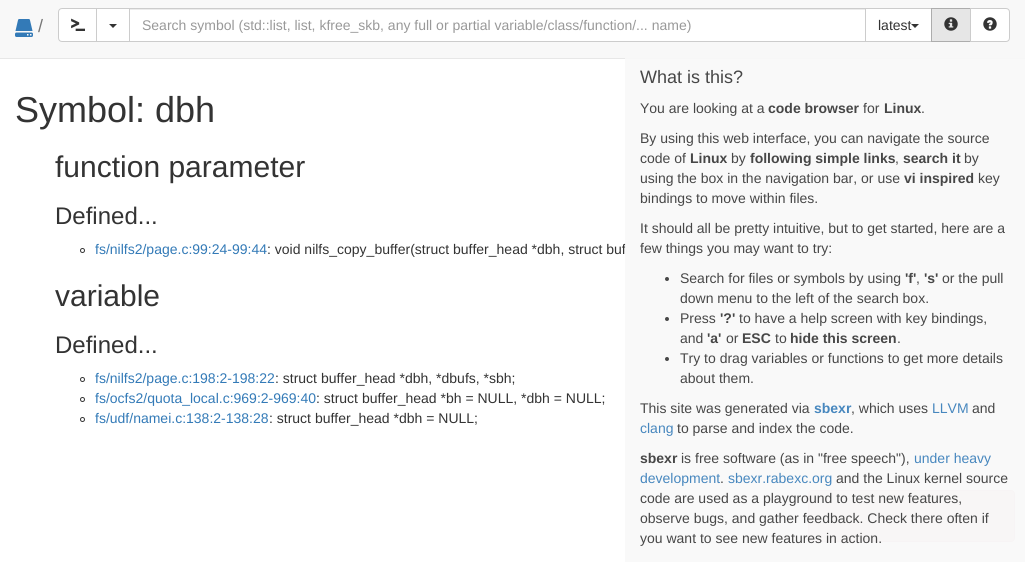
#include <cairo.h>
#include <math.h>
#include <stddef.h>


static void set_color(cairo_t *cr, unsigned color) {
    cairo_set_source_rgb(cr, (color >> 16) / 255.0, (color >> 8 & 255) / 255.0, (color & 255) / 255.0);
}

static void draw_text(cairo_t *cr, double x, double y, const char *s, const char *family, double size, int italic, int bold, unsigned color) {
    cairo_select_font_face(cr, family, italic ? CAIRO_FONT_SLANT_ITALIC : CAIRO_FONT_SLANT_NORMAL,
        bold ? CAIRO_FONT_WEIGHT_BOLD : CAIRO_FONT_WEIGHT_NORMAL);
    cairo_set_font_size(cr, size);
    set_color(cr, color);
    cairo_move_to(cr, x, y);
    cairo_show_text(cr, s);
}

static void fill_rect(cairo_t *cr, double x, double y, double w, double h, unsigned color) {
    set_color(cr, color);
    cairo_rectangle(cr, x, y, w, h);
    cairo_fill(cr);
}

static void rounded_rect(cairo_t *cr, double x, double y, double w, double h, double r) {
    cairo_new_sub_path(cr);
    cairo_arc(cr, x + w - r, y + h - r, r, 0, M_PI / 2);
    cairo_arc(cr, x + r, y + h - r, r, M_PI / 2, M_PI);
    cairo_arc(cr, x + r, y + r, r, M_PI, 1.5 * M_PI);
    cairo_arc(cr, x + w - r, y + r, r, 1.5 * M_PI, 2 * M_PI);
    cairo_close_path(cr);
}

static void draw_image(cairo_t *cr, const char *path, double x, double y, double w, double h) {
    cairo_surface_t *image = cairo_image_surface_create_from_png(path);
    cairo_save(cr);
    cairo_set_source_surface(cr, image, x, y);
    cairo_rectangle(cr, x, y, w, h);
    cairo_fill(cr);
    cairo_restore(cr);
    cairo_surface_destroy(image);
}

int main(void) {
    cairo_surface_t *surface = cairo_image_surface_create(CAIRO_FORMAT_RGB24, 1025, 562);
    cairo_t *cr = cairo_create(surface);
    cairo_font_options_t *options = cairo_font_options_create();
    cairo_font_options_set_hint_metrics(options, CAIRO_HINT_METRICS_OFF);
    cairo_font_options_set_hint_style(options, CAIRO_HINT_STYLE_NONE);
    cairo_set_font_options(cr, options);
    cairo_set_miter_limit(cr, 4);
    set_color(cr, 0xFFFFFF);
    cairo_paint(cr);
    fill_rect(cr, 0, 0, 1025, 58, 0xF8F8F8);
    fill_rect(cr, 0, 58, 1025, 1, 0xE7E7E7);
    draw_image(cr, "assets/img1.png", 15, 19, 18, 18);
    draw_text(cr, 38, 32, "/", "Liberation Sans", 18, 0, 0, 0x777777);
    set_color(cr, 0xFFFFFF);
    cairo_new_path(cr);
    cairo_move_to(cr, 62, 8.5);
    cairo_line_to(cr, 97.5, 8.5);
    cairo_line_to(cr, 97.5, 41.5);
    cairo_line_to(cr, 62, 41.5);
    cairo_curve_to(cr, 60, 41.5, 58.5, 40, 58.5, 38);
    cairo_line_to(cr, 58.5, 12);
    cairo_curve_to(cr, 58.5, 10, 60, 8.5, 62, 8.5);
    cairo_close_path(cr);
    cairo_fill_preserve(cr);
    set_color(cr, 0xCCCCCC);
    cairo_set_line_width(cr, 1);
    cairo_stroke(cr);
    draw_image(cr, "assets/img2.png", 71, 18, 14, 13);
    set_color(cr, 0xFFFFFF);
    cairo_rectangle(cr, 96.5, 8.5, 33, 33);
    cairo_fill_preserve(cr);
    set_color(cr, 0xCCCCCC);
    cairo_stroke(cr);
    set_color(cr, 0x333333);
    cairo_new_path(cr);
    cairo_move_to(cr, 109, 24);
    cairo_line_to(cr, 117, 24);
    cairo_line_to(cr, 113, 28);
    cairo_close_path(cr);
    cairo_fill(cr);
    fill_rect(cr, 130, 10, 735, 31, 0xFFFFFF);
    fill_rect(cr, 130, 9, 735, 1, 0xECECEC);
    cairo_rectangle(cr, 129.5, 8.5, 736, 33);
    set_color(cr, 0xCCCCCC);
    cairo_stroke(cr);
    draw_text(cr, 142, 30, "Search symbol (std::list, list, kfree_skb, any full or partial variable/class/function/... name)", "Liberation Sans", 14, 0, 0, 0x999999);
    set_color(cr, 0xFFFFFF);
    cairo_rectangle(cr, 865.5, 8.5, 66, 33);
    cairo_fill_preserve(cr);
    set_color(cr, 0xCCCCCC);
    cairo_stroke(cr);
    draw_text(cr, 878, 30, "latest", "Liberation Sans", 14, 0, 0, 0x333333);
    cairo_new_path(cr);
    cairo_move_to(cr, 911, 24);
    cairo_line_to(cr, 919, 24);
    cairo_line_to(cr, 915, 28);
    cairo_close_path(cr);
    cairo_fill(cr);
    set_color(cr, 0xE6E6E6);
    cairo_rectangle(cr, 931.5, 8.5, 39, 33);
    cairo_fill_preserve(cr);
    set_color(cr, 0xADADAD);
    cairo_stroke(cr);
    draw_image(cr, "assets/img3.png", 944, 17, 14, 14);
    set_color(cr, 0xFFFFFF);
    cairo_new_path(cr);
    cairo_move_to(cr, 970.5, 8.5);
    cairo_line_to(cr, 1006, 8.5);
    cairo_curve_to(cr, 1008, 8.5, 1009.5, 10, 1009.5, 12);
    cairo_line_to(cr, 1009.5, 38);
    cairo_curve_to(cr, 1009.5, 40, 1008, 41.5, 1006, 41.5);
    cairo_line_to(cr, 970.5, 41.5);
    cairo_close_path(cr);
    cairo_fill_preserve(cr);
    set_color(cr, 0xCCCCCC);
    cairo_stroke(cr);
    draw_image(cr, "assets/img4.png", 983, 17, 14, 14);
    draw_text(cr, 15, 122, "Symbol: dbh", "Liberation Sans", 36, 0, 0, 0x333333);
    draw_text(cr, 55, 177, "function parameter", "Liberation Sans", 30, 0, 0, 0x333333);
    draw_text(cr, 55, 224, "Defined...", "Liberation Sans", 24, 0, 0, 0x333333);
    cairo_new_path(cr);
    cairo_arc(cr, 82.5, 250.5, 2, 0, 2 * M_PI);
    cairo_stroke(cr);
    draw_text(cr, 95, 254, "fs/nilfs2/page.c:99:24-99:44", "Liberation Sans", 14, 0, 0, 0x337AB7);
    draw_text(cr, 267, 254, ": void nilfs_copy_buffer(struct buffer_head *dbh, struct buf", "Liberation Sans", 14, 0, 0, 0x333333);
    draw_text(cr, 55, 306, "variable", "Liberation Sans", 30, 0, 0, 0x333333);
    draw_text(cr, 55, 353, "Defined...", "Liberation Sans", 24, 0, 0, 0x333333);
    cairo_new_path(cr);
    cairo_arc(cr, 82.5, 379.5, 2, 0, 2 * M_PI);
    cairo_stroke(cr);
    draw_text(cr, 95, 383, "fs/nilfs2/page.c:198:2-198:22", "Liberation Sans", 14, 0, 0, 0x337AB7);
    draw_text(cr, 275, 383, ": struct buffer_head *dbh, *dbufs, *sbh;", "Liberation Sans", 14, 0, 0, 0x333333);
    cairo_new_path(cr);
    cairo_arc(cr, 82.5, 399.5, 2, 0, 2 * M_PI);
    cairo_stroke(cr);
    draw_text(cr, 95, 403, "fs/ocfs2/quota_local.c:969:2-969:40", "Liberation Sans", 14, 0, 0, 0x337AB7);
    draw_text(cr, 316, 403, ": struct buffer_head *bh = NULL, *dbh = NULL;", "Liberation Sans", 14, 0, 0, 0x333333);
    cairo_new_path(cr);
    cairo_arc(cr, 82.5, 419.5, 2, 0, 2 * M_PI);
    cairo_stroke(cr);
    draw_text(cr, 95, 423, "fs/udf/namei.c:138:2-138:28", "Liberation Sans", 14, 0, 0, 0x337AB7);
    draw_text(cr, 269, 423, ": struct buffer_head *dbh = NULL;", "Liberation Sans", 14, 0, 0, 0x333333);
    set_color(cr, 0xF3E1E1);
    rounded_rect(cr, 808.5, 490.5, 206, 51, 3.5);
    cairo_fill_preserve(cr);
    set_color(cr, 0xEDD1D6);
    cairo_stroke(cr);
    cairo_set_source_rgba(cr, 0.973, 0.973, 0.973, 0.9);
    cairo_rectangle(cr, 625, 58, 400, 504);
    cairo_fill(cr);
    draw_text(cr, 640, 83, "What is this?", "Liberation Sans", 18, 0, 0, 0x474747);
    draw_text(cr, 640, 113, "You are looking at a", "Liberation Sans", 14, 0, 0, 0x474747);
    draw_text(cr, 768, 113, "code browser", "Liberation Sans", 14, 0, 1, 0x474747);
    draw_text(cr, 863, 113, "for", "Liberation Sans", 14, 0, 0, 0x474747);
    draw_text(cr, 884, 113, "Linux", "Liberation Sans", 14, 0, 1, 0x474747);
    draw_text(cr, 921, 113, ".", "Liberation Sans", 14, 0, 0, 0x474747);
    draw_text(cr, 640, 143, "By using this web interface, you can navigate the source", "Liberation Sans", 14, 0, 0, 0x474747);
    draw_text(cr, 640, 163, "code of", "Liberation Sans", 14, 0, 0, 0x474747);
    draw_text(cr, 690, 163, "Linux", "Liberation Sans", 14, 0, 1, 0x474747);
    draw_text(cr, 731, 163, "by", "Liberation Sans", 14, 0, 0, 0x474747);
    draw_text(cr, 750, 163, "following simple links", "Liberation Sans", 14, 0, 1, 0x474747);
    draw_text(cr, 895, 163, ",", "Liberation Sans", 14, 0, 0, 0x474747);
    draw_text(cr, 903, 163, "search it", "Liberation Sans", 14, 0, 1, 0x474747);
    draw_text(cr, 964, 163, "by", "Liberation Sans", 14, 0, 0, 0x474747);
    draw_text(cr, 640, 183, "using the box in the navigation bar, or use", "Liberation Sans", 14, 0, 0, 0x474747);
    draw_text(cr, 904, 183, "vi inspired", "Liberation Sans", 14, 0, 1, 0x474747);
    draw_text(cr, 978, 183, "key", "Liberation Sans", 14, 0, 0, 0x474747);
    draw_text(cr, 640, 203, "bindings to move within files.", "Liberation Sans", 14, 0, 0, 0x474747);
    draw_text(cr, 640, 233, "It should all be pretty intuitive, but to get started, here are a", "Liberation Sans", 14, 0, 0, 0x474747);
    draw_text(cr, 640, 253, "few things you may want to try:", "Liberation Sans", 14, 0, 0, 0x474747);
    cairo_new_path(cr);
    cairo_arc(cr, 667, 279, 2, 0, 2 * M_PI);
    cairo_fill(cr);
    draw_text(cr, 680, 283, "Search for files or symbols by using", "Liberation Sans", 14, 0, 0, 0x474747);
    draw_text(cr, 905, 283, "'f'", "Liberation Sans", 14, 0, 1, 0x474747);
    draw_text(cr, 924, 283, "'s'", "Liberation Sans", 14, 0, 1, 0x474747);
    draw_text(cr, 942, 283, "or the pull", "Liberation Sans", 14, 0, 0, 0x474747);
    draw_text(cr, 916, 283, ",", "Liberation Sans", 14, 0, 0, 0x474747);
    draw_text(cr, 680, 303, "down menu to the left of the search box.", "Liberation Sans", 14, 0, 0, 0x474747);
    cairo_new_path(cr);
    cairo_arc(cr, 667, 319, 2, 0, 2 * M_PI);
    cairo_fill(cr);
    draw_text(cr, 680, 323, "Press", "Liberation Sans", 14, 0, 0, 0x474747);
    draw_text(cr, 720, 323, "'?'", "Liberation Sans", 14, 0, 1, 0x474747);
    draw_text(cr, 739, 323, "to have a help screen with key bindings,", "Liberation Sans", 14, 0, 0, 0x474747);
    draw_text(cr, 680, 343, "and", "Liberation Sans", 14, 0, 0, 0x474747);
    draw_text(cr, 707, 343, "'a'", "Liberation Sans", 14, 0, 1, 0x474747);
    draw_text(cr, 726, 343, "or", "Liberation Sans", 14, 0, 0, 0x474747);
    draw_text(cr, 742, 343, "ESC", "Liberation Sans", 14, 0, 1, 0x474747);
    draw_text(cr, 775, 343, "to", "Liberation Sans", 14, 0, 0, 0x474747);
    draw_text(cr, 790, 343, "hide this screen", "Liberation Sans", 14, 0, 1, 0x474747);
    draw_text(cr, 897, 343, ".", "Liberation Sans", 14, 0, 0, 0x474747);
    cairo_new_path(cr);
    cairo_arc(cr, 667, 359, 2, 0, 2 * M_PI);
    cairo_fill(cr);
    draw_text(cr, 680, 363, "Try to drag variables or functions to get more details", "Liberation Sans", 14, 0, 0, 0x474747);
    draw_text(cr, 680, 383, "about them.", "Liberation Sans", 14, 0, 0, 0x474747);
    draw_text(cr, 640, 413, "This site was generated via", "Liberation Sans", 14, 0, 0, 0x474747);
    draw_text(cr, 814, 413, "sbexr", "Liberation Sans", 14, 0, 1, 0x4787BE);
    draw_text(cr, 851, 413, ", which uses", "Liberation Sans", 14, 0, 0, 0x474747);
    draw_text(cr, 932, 413, "LLVM", "Liberation Sans", 14, 0, 0, 0x4787BE);
    draw_text(cr, 972, 413, "and", "Liberation Sans", 14, 0, 0, 0x474747);
    draw_text(cr, 640, 433, "clang", "Liberation Sans", 14, 0, 0, 0x4787BE);
    draw_text(cr, 677, 433, "to parse and index the code.", "Liberation Sans", 14, 0, 0, 0x474747);
    draw_text(cr, 640, 463, "sbexr", "Liberation Sans", 14, 0, 1, 0x474747);
    draw_text(cr, 681, 463, "is free software (as in \"free speech\"),", "Liberation Sans", 14, 0, 0, 0x474747);
    draw_text(cr, 914, 463, "under heavy", "Liberation Sans", 14, 0, 0, 0x4787BE);
    draw_text(cr, 640, 483, "development", "Liberation Sans", 14, 0, 0, 0x4787BE);
    draw_text(cr, 720, 483, ".", "Liberation Sans", 14, 0, 0, 0x474747);
    draw_text(cr, 728, 483, "sbexr.rabexc.org", "Liberation Sans", 14, 0, 0, 0x4787BE);
    draw_text(cr, 836, 483, "and the Linux kernel source", "Liberation Sans", 14, 0, 0, 0x474747);
    draw_text(cr, 640, 503, "code are used as a playground to test new features,", "Liberation Sans", 14, 0, 0, 0x474747);
    draw_text(cr, 640, 523, "observe bugs, and gather feedback. Check there often if", "Liberation Sans", 14, 0, 0, 0x474747);
    draw_text(cr, 640, 543, "you want to see new features in action.", "Liberation Sans", 14, 0, 0, 0x474747);
    cairo_surface_write_to_png(surface, "output.png");
    cairo_font_options_destroy(options);
    cairo_destroy(cr);
    cairo_surface_destroy(surface);
    return 0;
}
